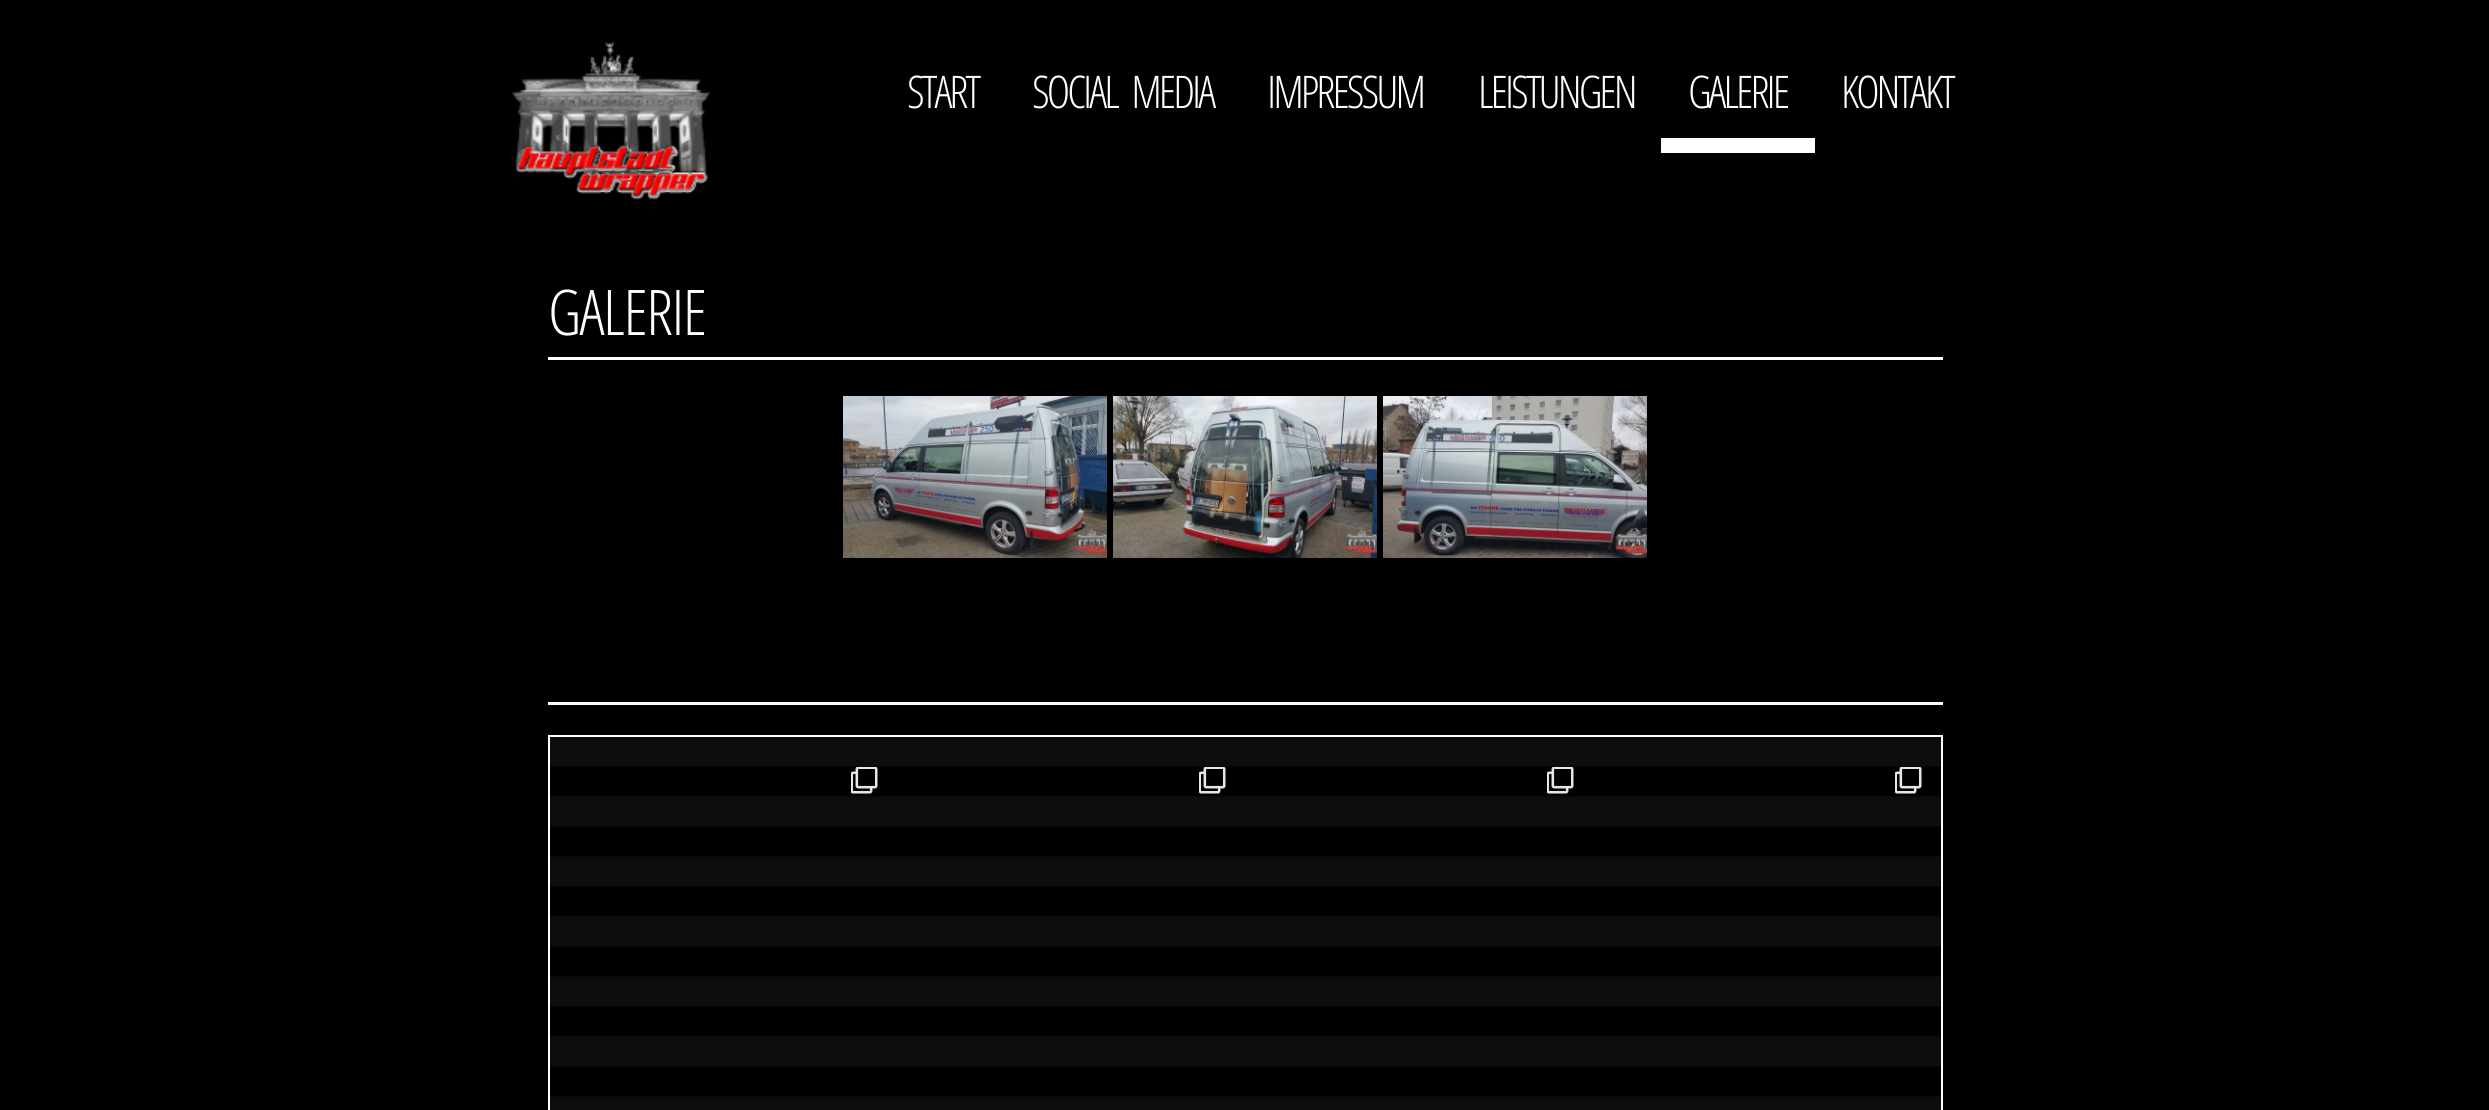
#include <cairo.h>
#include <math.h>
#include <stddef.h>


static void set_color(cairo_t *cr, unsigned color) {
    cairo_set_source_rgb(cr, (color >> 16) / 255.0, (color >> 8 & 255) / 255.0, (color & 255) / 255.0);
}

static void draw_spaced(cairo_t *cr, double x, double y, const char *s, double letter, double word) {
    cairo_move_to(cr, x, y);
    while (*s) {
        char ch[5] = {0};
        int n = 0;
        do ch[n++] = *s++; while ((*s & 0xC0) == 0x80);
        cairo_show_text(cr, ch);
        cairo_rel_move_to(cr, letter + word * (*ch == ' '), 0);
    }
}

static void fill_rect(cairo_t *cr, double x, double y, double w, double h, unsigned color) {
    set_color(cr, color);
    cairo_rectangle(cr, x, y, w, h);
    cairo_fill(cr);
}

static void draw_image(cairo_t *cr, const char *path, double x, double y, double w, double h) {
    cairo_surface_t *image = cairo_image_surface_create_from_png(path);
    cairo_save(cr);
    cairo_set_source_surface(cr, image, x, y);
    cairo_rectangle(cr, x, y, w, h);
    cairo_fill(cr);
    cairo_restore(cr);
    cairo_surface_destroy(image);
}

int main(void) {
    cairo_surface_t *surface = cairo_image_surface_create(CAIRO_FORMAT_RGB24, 2489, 1110);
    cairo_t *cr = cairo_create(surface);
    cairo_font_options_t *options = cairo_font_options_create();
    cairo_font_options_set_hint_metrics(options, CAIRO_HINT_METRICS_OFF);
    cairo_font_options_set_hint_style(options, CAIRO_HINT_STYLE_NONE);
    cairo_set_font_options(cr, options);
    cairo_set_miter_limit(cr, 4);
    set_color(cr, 0x000000);
    cairo_paint(cr);
    draw_image(cr, "assets/img1.png", 511, 41, 199, 159);
    cairo_select_font_face(cr, "Open Sans Condensed Light", CAIRO_FONT_SLANT_NORMAL, CAIRO_FONT_WEIGHT_NORMAL);
    cairo_set_font_size(cr, 45);
    set_color(cr, 0xFFFFFF);
    draw_spaced(cr, 907, 108, "START", -3, 0);
    draw_spaced(cr, 1032, 108, "SOCIAL MEDIA", -3, 9);
    draw_spaced(cr, 1267, 108, "IMPRESSUM", -3, 0);
    draw_spaced(cr, 1478, 108, "LEISTUNGEN", -3, 0);
    fill_rect(cr, 1661, 138, 154, 15, 0xFFFFFF);
    draw_spaced(cr, 1688, 108, "GALERIE", -3, 0);
    draw_spaced(cr, 1841, 108, "KONTAKT", -3, 0);
    fill_rect(cr, 548, 357, 1395, 3, 0xFFFFFF);
    cairo_set_font_size(cr, 63);
    draw_spaced(cr, 548, 335, "GALERIE", -1.5, 0);
    draw_image(cr, "assets/img2.png", 843, 396, 264, 162);
    draw_image(cr, "assets/img3.png", 1113, 396, 264, 162);
    draw_image(cr, "assets/img4.png", 1383, 396, 264, 162);
    draw_image(cr, "assets/img5.png", 547, 703, 1, 2);
    fill_rect(cr, 548, 702, 1395, 3, 0xFFFFFF);
    draw_image(cr, "assets/img6.png", 547, 736, 1394, 374);
    cairo_rectangle(cr, 549, 736, 1393, 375);
    cairo_stroke(cr);
    draw_image(cr, "assets/img7.png", 851, 767, 27, 27);
    draw_image(cr, "assets/img7.png", 1199, 767, 27, 27);
    draw_image(cr, "assets/img7.png", 1547, 767, 27, 27);
    draw_image(cr, "assets/img7.png", 1895, 767, 27, 27);
    cairo_surface_write_to_png(surface, "output.png");
    cairo_font_options_destroy(options);
    cairo_destroy(cr);
    cairo_surface_destroy(surface);
    return 0;
}
